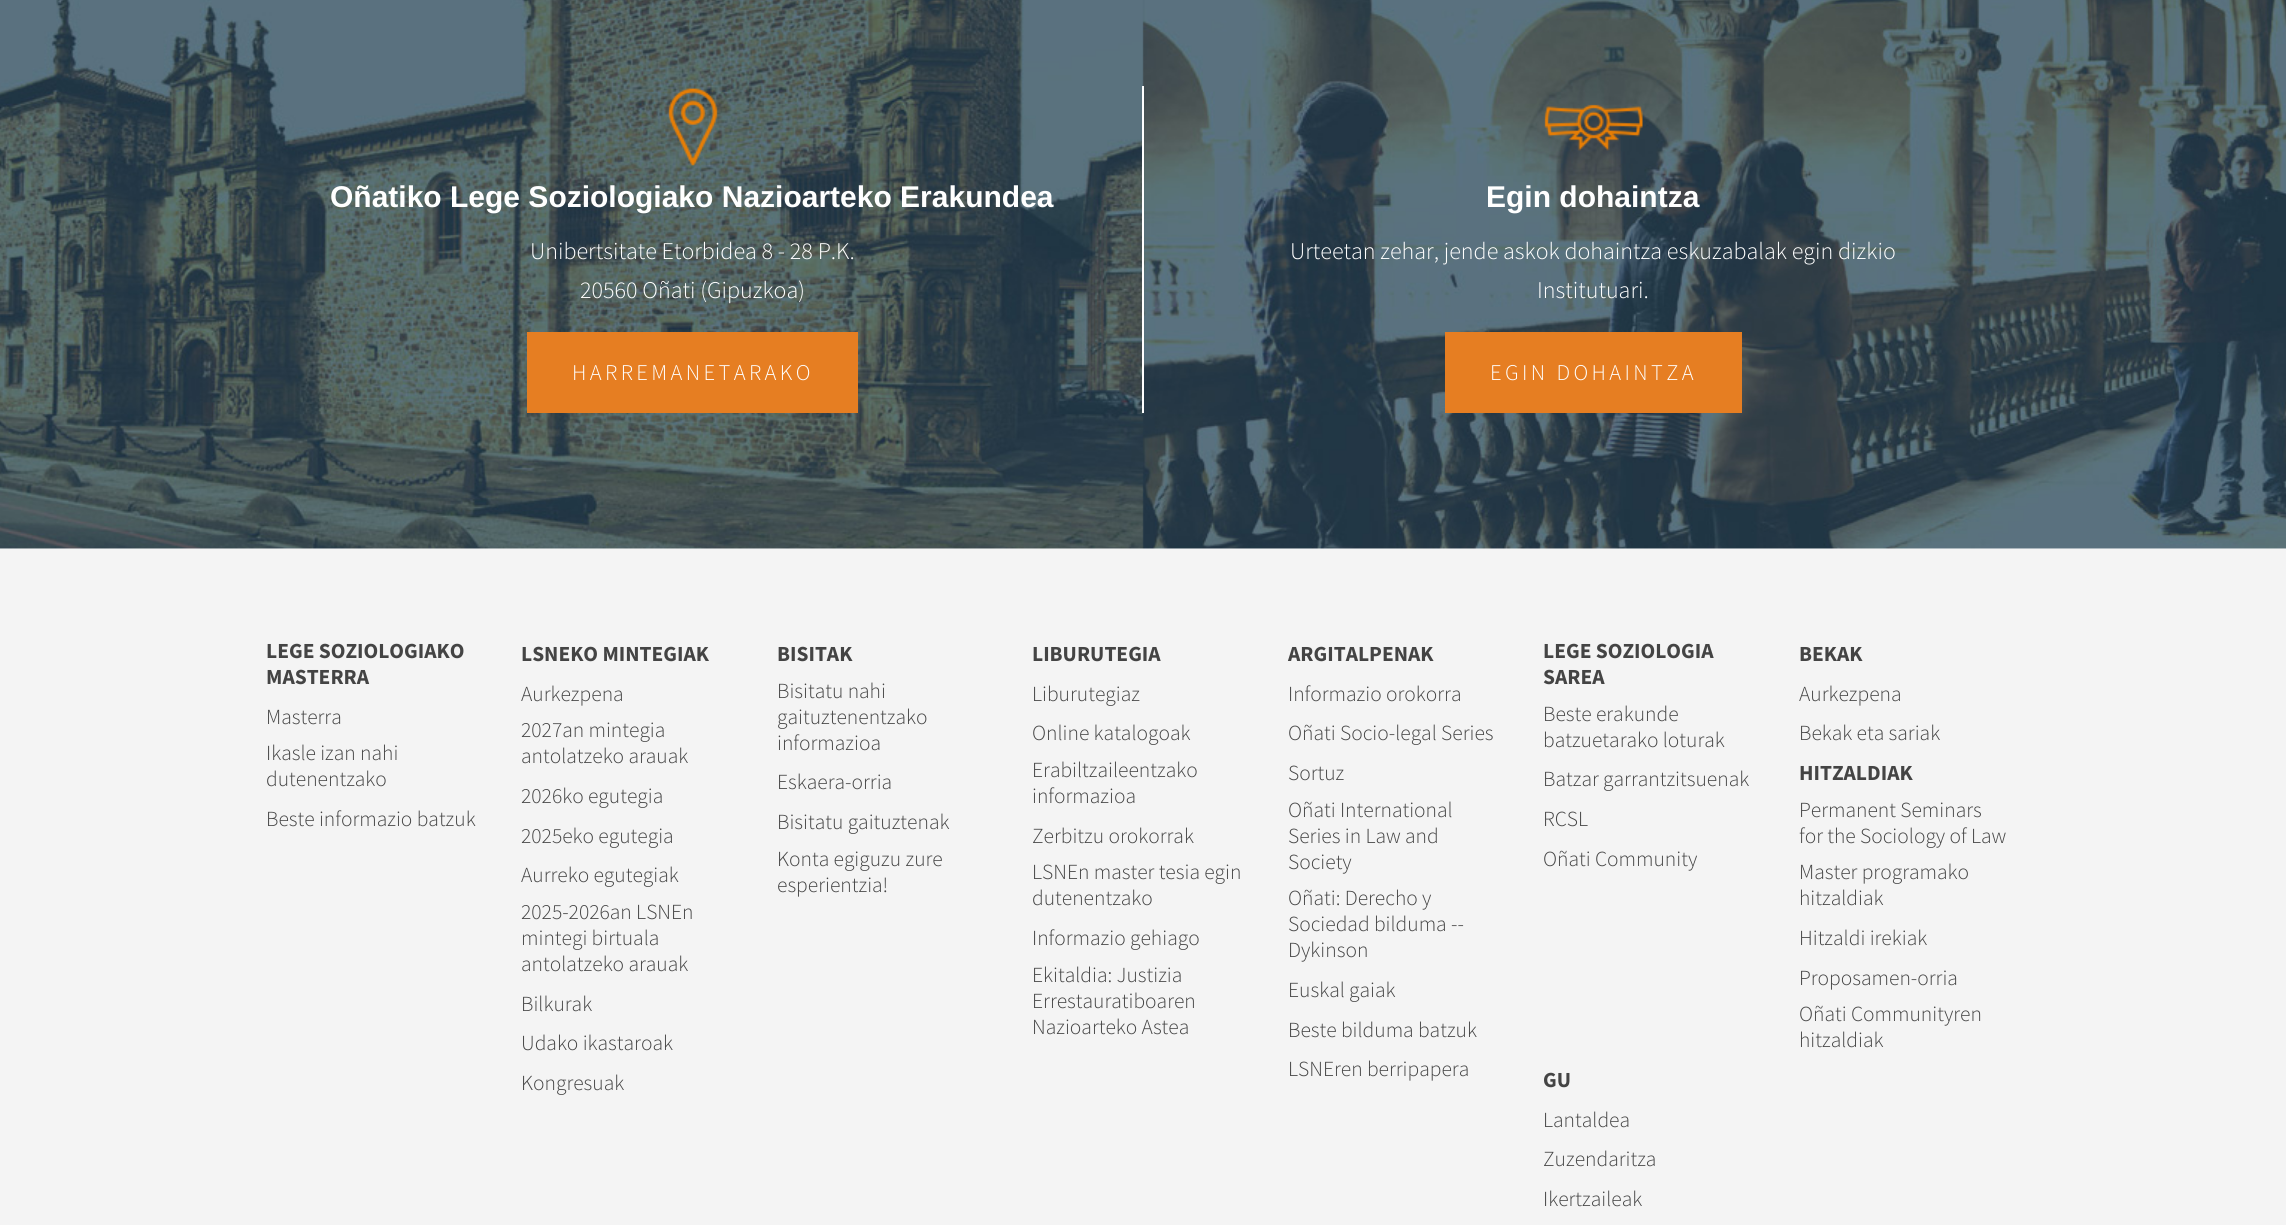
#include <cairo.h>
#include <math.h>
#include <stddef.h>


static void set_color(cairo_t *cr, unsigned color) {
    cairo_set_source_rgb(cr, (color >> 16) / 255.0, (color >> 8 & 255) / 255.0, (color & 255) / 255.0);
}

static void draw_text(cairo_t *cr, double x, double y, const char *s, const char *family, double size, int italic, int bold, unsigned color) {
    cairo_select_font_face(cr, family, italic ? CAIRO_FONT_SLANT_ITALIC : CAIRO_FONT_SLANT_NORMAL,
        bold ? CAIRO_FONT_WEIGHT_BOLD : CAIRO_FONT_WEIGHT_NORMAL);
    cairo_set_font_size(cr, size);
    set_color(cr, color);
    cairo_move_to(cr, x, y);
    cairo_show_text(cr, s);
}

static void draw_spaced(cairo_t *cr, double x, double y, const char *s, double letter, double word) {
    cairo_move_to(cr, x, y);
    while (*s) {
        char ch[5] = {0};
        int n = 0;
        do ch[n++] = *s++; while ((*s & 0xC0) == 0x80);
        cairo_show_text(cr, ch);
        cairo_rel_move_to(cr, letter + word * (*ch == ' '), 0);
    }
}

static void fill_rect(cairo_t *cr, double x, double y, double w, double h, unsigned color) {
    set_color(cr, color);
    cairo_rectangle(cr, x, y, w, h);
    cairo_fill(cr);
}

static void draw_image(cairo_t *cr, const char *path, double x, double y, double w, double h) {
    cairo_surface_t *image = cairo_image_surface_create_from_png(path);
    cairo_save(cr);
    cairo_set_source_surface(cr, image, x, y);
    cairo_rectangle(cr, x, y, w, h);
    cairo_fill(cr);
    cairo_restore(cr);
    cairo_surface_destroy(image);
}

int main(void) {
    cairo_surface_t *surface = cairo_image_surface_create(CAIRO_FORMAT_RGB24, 2286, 1225);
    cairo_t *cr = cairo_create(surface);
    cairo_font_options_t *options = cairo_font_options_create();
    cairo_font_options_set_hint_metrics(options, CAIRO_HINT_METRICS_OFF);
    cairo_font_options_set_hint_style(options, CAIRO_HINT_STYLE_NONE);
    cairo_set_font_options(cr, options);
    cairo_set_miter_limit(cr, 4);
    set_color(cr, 0xFFFFFF);
    cairo_paint(cr);
    draw_image(cr, "assets/img1.png", 0, 0, 2286, 549);
    fill_rect(cr, 1142, 86, 2, 327, 0xFFFFFF);
    draw_image(cr, "assets/img2.png", 668, 88, 50, 78);
    draw_text(cr, 330, 207, "Oñatiko Lege Soziologiako Nazioarteko Erakundea", "Liberation Sans", 30, 0, 1, 0xFFFFFF);
    draw_text(cr, 530, 259, "Unibertsitate Etorbidea 8 - 28 P.K.", "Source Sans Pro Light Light", 24, 0, 0, 0xFFFFFF);
    draw_text(cr, 580, 298, "20560 Oñati (Gipuzkoa)", "Source Sans Pro Light Light", 24, 0, 0, 0xFFFFFF);
    fill_rect(cr, 527, 332, 331, 81, 0xE67E22);
    cairo_set_font_size(cr, 22.5);
    set_color(cr, 0xFFFFFF);
    draw_spaced(cr, 572, 380, "HARREMANETARAKO", 3.4, 0);
    draw_image(cr, "assets/img3.png", 1544, 104, 99, 47);
    draw_text(cr, 1486, 207, "Egin dohaintza", "Liberation Sans", 30, 0, 1, 0xFFFFFF);
    draw_text(cr, 1290, 259, "Urteetan zehar, jende askok dohaintza eskuzabalak egin dizkio", "Source Sans Pro Light Light", 24, 0, 0, 0xFFFFFF);
    draw_text(cr, 1537, 298, "Institutuari.", "Source Sans Pro Light Light", 24, 0, 0, 0xFFFFFF);
    fill_rect(cr, 1445, 332, 297, 81, 0xE67E22);
    cairo_set_font_size(cr, 22.5);
    set_color(cr, 0xFFFFFF);
    draw_spaced(cr, 1490, 380, "EGIN DOHAINTZA", 3.4, 0);
    fill_rect(cr, 0, 549, 2286, 676, 0xF4F4F4);
    draw_text(cr, 266, 658, "LEGE SOZIOLOGIAKO", "Source Sans Pro", 21.5, 0, 1, 0x444444);
    draw_text(cr, 266, 684, "MASTERRA", "Source Sans Pro", 21.5, 0, 1, 0x444444);
    draw_text(cr, 266, 724, "Masterra", "Source Sans Pro Light Light", 21.5, 0, 0, 0x444444);
    draw_text(cr, 266, 760, "Ikasle izan nahi", "Source Sans Pro Light Light", 21.5, 0, 0, 0x444444);
    draw_text(cr, 266, 786, "dutenentzako", "Source Sans Pro Light Light", 21.5, 0, 0, 0x444444);
    draw_text(cr, 266, 826, "Beste informazio batzuk", "Source Sans Pro Light Light", 21.5, 0, 0, 0x444444);
    draw_text(cr, 521, 661, "LSNEKO MINTEGIAK", "Source Sans Pro", 21.5, 0, 1, 0x444444);
    draw_text(cr, 521, 701, "Aurkezpena", "Source Sans Pro Light Light", 21.5, 0, 0, 0x444444);
    draw_text(cr, 521, 737, "2027an mintegia", "Source Sans Pro Light Light", 21.5, 0, 0, 0x444444);
    draw_text(cr, 521, 763, "antolatzeko arauak", "Source Sans Pro Light Light", 21.5, 0, 0, 0x444444);
    draw_text(cr, 521, 803, "2026ko egutegia", "Source Sans Pro Light Light", 21.5, 0, 0, 0x444444);
    draw_text(cr, 521, 843, "2025eko egutegia", "Source Sans Pro Light Light", 21.5, 0, 0, 0x444444);
    draw_text(cr, 521, 882, "Aurreko egutegiak", "Source Sans Pro Light Light", 21.5, 0, 0, 0x444444);
    draw_text(cr, 521, 919, "2025-2026an LSNEn", "Source Sans Pro Light Light", 21.5, 0, 0, 0x444444);
    draw_text(cr, 521, 945, "mintegi birtuala", "Source Sans Pro Light Light", 21.5, 0, 0, 0x444444);
    draw_text(cr, 521, 971, "antolatzeko arauak", "Source Sans Pro Light Light", 21.5, 0, 0, 0x444444);
    draw_text(cr, 521, 1011, "Bilkurak", "Source Sans Pro Light Light", 21.5, 0, 0, 0x444444);
    draw_text(cr, 521, 1050, "Udako ikastaroak", "Source Sans Pro Light Light", 21.5, 0, 0, 0x444444);
    draw_text(cr, 521, 1090, "Kongresuak", "Source Sans Pro Light Light", 21.5, 0, 0, 0x444444);
    draw_text(cr, 777, 661, "BISITAK", "Source Sans Pro", 21.5, 0, 1, 0x444444);
    draw_text(cr, 777, 698, "Bisitatu nahi", "Source Sans Pro Light Light", 21.5, 0, 0, 0x444444);
    draw_text(cr, 777, 724, "gaituztenentzako", "Source Sans Pro Light Light", 21.5, 0, 0, 0x444444);
    draw_text(cr, 777, 750, "informazioa", "Source Sans Pro Light Light", 21.5, 0, 0, 0x444444);
    draw_text(cr, 777, 789, "Eskaera-orria", "Source Sans Pro Light Light", 21.5, 0, 0, 0x444444);
    draw_text(cr, 777, 829, "Bisitatu gaituztenak", "Source Sans Pro Light Light", 21.5, 0, 0, 0x444444);
    draw_text(cr, 777, 866, "Konta egiguzu zure", "Source Sans Pro Light Light", 21.5, 0, 0, 0x444444);
    draw_text(cr, 777, 892, "esperientzia!", "Source Sans Pro Light Light", 21.5, 0, 0, 0x444444);
    draw_text(cr, 1032, 661, "LIBURUTEGIA", "Source Sans Pro", 21.5, 0, 1, 0x444444);
    draw_text(cr, 1032, 701, "Liburutegiaz", "Source Sans Pro Light Light", 21.5, 0, 0, 0x444444);
    draw_text(cr, 1032, 740, "Online katalogoak", "Source Sans Pro Light Light", 21.5, 0, 0, 0x444444);
    draw_text(cr, 1032, 777, "Erabiltzaileentzako", "Source Sans Pro Light Light", 21.5, 0, 0, 0x444444);
    draw_text(cr, 1032, 803, "informazioa", "Source Sans Pro Light Light", 21.5, 0, 0, 0x444444);
    draw_text(cr, 1032, 843, "Zerbitzu orokorrak", "Source Sans Pro Light Light", 21.5, 0, 0, 0x444444);
    draw_text(cr, 1032, 879, "LSNEn master tesia egin", "Source Sans Pro Light Light", 21.5, 0, 0, 0x444444);
    draw_text(cr, 1032, 905, "dutenentzako", "Source Sans Pro Light Light", 21.5, 0, 0, 0x444444);
    draw_text(cr, 1032, 945, "Informazio gehiago", "Source Sans Pro Light Light", 21.5, 0, 0, 0x444444);
    draw_text(cr, 1032, 982, "Ekitaldia: Justizia", "Source Sans Pro Light Light", 21.5, 0, 0, 0x444444);
    draw_text(cr, 1032, 1008, "Errestauratiboaren", "Source Sans Pro Light Light", 21.5, 0, 0, 0x444444);
    draw_text(cr, 1032, 1034, "Nazioarteko Astea", "Source Sans Pro Light Light", 21.5, 0, 0, 0x444444);
    draw_text(cr, 1288, 661, "ARGITALPENAK", "Source Sans Pro", 21.5, 0, 1, 0x444444);
    draw_text(cr, 1288, 701, "Informazio orokorra", "Source Sans Pro Light Light", 21.5, 0, 0, 0x444444);
    draw_text(cr, 1288, 740, "Oñati Socio-legal Series", "Source Sans Pro Light Light", 21.5, 0, 0, 0x444444);
    draw_text(cr, 1288, 780, "Sortuz", "Source Sans Pro Light Light", 21.5, 0, 0, 0x444444);
    draw_text(cr, 1288, 817, "Oñati International", "Source Sans Pro Light Light", 21.5, 0, 0, 0x444444);
    draw_text(cr, 1288, 843, "Series in Law and", "Source Sans Pro Light Light", 21.5, 0, 0, 0x444444);
    draw_text(cr, 1288, 869, "Society", "Source Sans Pro Light Light", 21.5, 0, 0, 0x444444);
    draw_text(cr, 1288, 905, "Oñati: Derecho y", "Source Sans Pro Light Light", 21.5, 0, 0, 0x444444);
    draw_text(cr, 1288, 931, "Sociedad bilduma --", "Source Sans Pro Light Light", 21.5, 0, 0, 0x444444);
    draw_text(cr, 1288, 957, "Dykinson", "Source Sans Pro Light Light", 21.5, 0, 0, 0x444444);
    draw_text(cr, 1288, 997, "Euskal gaiak", "Source Sans Pro Light Light", 21.5, 0, 0, 0x444444);
    draw_text(cr, 1288, 1037, "Beste bilduma batzuk", "Source Sans Pro Light Light", 21.5, 0, 0, 0x444444);
    draw_text(cr, 1288, 1076, "LSNEren berripapera", "Source Sans Pro Light Light", 21.5, 0, 0, 0x444444);
    draw_text(cr, 1543, 658, "LEGE SOZIOLOGIA", "Source Sans Pro", 21.5, 0, 1, 0x444444);
    draw_text(cr, 1543, 684, "SAREA", "Source Sans Pro", 21.5, 0, 1, 0x444444);
    draw_text(cr, 1543, 721, "Beste erakunde", "Source Sans Pro Light Light", 21.5, 0, 0, 0x444444);
    draw_text(cr, 1543, 747, "batzuetarako loturak", "Source Sans Pro Light Light", 21.5, 0, 0, 0x444444);
    draw_text(cr, 1543, 786, "Batzar garrantzitsuenak", "Source Sans Pro Light Light", 21.5, 0, 0, 0x444444);
    draw_text(cr, 1543, 826, "RCSL", "Source Sans Pro Light Light", 21.5, 0, 0, 0x444444);
    draw_text(cr, 1543, 866, "Oñati Community", "Source Sans Pro Light Light", 21.5, 0, 0, 0x444444);
    draw_text(cr, 1799, 661, "BEKAK", "Source Sans Pro", 21.5, 0, 1, 0x444444);
    draw_text(cr, 1799, 701, "Aurkezpena", "Source Sans Pro Light Light", 21.5, 0, 0, 0x444444);
    draw_text(cr, 1799, 740, "Bekak eta sariak", "Source Sans Pro Light Light", 21.5, 0, 0, 0x444444);
    draw_text(cr, 1799, 780, "HITZALDIAK", "Source Sans Pro", 21.5, 0, 1, 0x444444);
    draw_text(cr, 1799, 817, "Permanent Seminars", "Source Sans Pro Light Light", 21.5, 0, 0, 0x444444);
    draw_text(cr, 1799, 843, "for the Sociology of Law", "Source Sans Pro Light Light", 21.5, 0, 0, 0x444444);
    draw_text(cr, 1799, 879, "Master programako", "Source Sans Pro Light Light", 21.5, 0, 0, 0x444444);
    draw_text(cr, 1799, 905, "hitzaldiak", "Source Sans Pro Light Light", 21.5, 0, 0, 0x444444);
    draw_text(cr, 1799, 945, "Hitzaldi irekiak", "Source Sans Pro Light Light", 21.5, 0, 0, 0x444444);
    draw_text(cr, 1799, 985, "Proposamen-orria", "Source Sans Pro Light Light", 21.5, 0, 0, 0x444444);
    draw_text(cr, 1799, 1021, "Oñati Communityren", "Source Sans Pro Light Light", 21.5, 0, 0, 0x444444);
    draw_text(cr, 1799, 1047, "hitzaldiak", "Source Sans Pro Light Light", 21.5, 0, 0, 0x444444);
    draw_text(cr, 1543, 1087, "GU", "Source Sans Pro", 21.5, 0, 1, 0x444444);
    draw_text(cr, 1543, 1127, "Lantaldea", "Source Sans Pro Light Light", 21.5, 0, 0, 0x444444);
    draw_text(cr, 1543, 1166, "Zuzendaritza", "Source Sans Pro Light Light", 21.5, 0, 0, 0x444444);
    draw_text(cr, 1543, 1206, "Ikertzaileak", "Source Sans Pro Light Light", 21.5, 0, 0, 0x444444);
    cairo_surface_write_to_png(surface, "output.png");
    cairo_font_options_destroy(options);
    cairo_destroy(cr);
    cairo_surface_destroy(surface);
    return 0;
}
